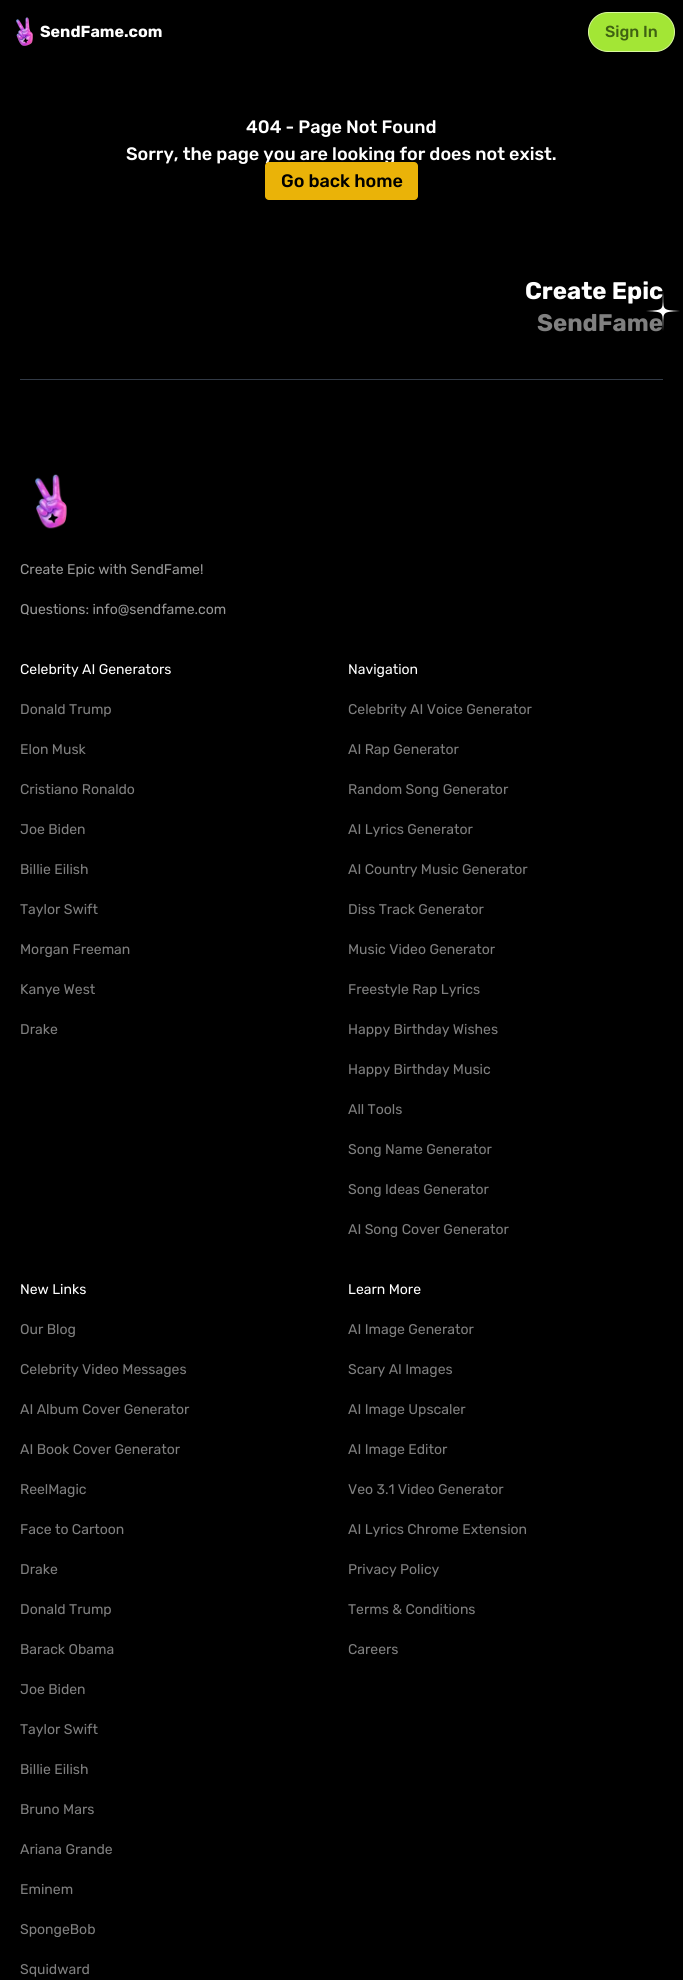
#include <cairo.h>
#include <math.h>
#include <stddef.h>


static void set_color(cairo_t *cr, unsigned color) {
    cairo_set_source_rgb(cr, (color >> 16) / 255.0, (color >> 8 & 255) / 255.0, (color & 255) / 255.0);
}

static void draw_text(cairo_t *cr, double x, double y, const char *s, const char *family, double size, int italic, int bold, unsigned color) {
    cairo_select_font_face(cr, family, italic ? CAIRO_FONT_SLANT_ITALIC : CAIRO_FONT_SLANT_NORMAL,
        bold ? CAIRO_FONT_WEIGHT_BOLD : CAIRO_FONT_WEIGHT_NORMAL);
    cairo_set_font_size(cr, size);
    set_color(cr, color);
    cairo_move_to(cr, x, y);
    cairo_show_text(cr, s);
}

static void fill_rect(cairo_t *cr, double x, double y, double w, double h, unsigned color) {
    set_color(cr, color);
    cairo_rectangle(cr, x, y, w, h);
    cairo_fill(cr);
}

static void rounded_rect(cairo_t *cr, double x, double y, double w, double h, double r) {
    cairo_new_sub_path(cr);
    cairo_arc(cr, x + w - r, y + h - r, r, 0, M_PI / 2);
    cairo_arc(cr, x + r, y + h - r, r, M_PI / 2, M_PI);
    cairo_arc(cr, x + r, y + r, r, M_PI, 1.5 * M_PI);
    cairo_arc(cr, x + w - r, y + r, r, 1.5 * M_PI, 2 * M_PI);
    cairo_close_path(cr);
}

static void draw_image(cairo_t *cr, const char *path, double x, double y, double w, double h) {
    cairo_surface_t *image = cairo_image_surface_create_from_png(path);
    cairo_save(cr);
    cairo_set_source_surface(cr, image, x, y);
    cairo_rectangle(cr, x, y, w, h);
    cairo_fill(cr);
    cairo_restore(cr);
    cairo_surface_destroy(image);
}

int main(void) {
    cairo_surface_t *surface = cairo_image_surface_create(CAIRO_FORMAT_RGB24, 683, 1980);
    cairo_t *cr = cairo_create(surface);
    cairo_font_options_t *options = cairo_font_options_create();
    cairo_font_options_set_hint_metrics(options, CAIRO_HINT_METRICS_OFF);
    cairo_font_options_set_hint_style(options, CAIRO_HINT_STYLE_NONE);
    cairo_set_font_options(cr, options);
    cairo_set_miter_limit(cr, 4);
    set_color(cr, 0x000000);
    cairo_paint(cr);
    draw_image(cr, "assets/img1.png", 16, 17, 17, 29);
    draw_text(cr, 40, 37, "SendFame.com", "Rubik", 16, 0, 1, 0xFFFFFF);
    set_color(cr, 0xA3E635);
    rounded_rect(cr, 588.5, 12.5, 86, 39, 19.5);
    cairo_fill_preserve(cr);
    set_color(cr, 0xD9F99D);
    cairo_set_line_width(cr, 1);
    cairo_stroke(cr);
    draw_text(cr, 605, 37, "Sign In", "Rubik Medium", 16, 0, 0, 0x3F6212);
    draw_text(cr, 246, 133, "404 - Page Not Found", "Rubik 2 Medium", 18, 0, 0, 0xFFFFFF);
    draw_text(cr, 126, 160, "Sorry, the page you are looking for does not exist.", "Rubik 2 Medium", 18, 0, 0, 0xFFFFFF);
    set_color(cr, 0xEAB308);
    rounded_rect(cr, 265, 162, 153, 38, 4);
    cairo_fill(cr);
    draw_text(cr, 281, 187, "Go back home", "Rubik 2 Medium", 18, 0, 0, 0x000000);
    draw_text(cr, 525, 299, "Create Epic", "Rubik", 24, 0, 1, 0xFFFFFF);
    draw_text(cr, 537, 331, "SendFame", "Rubik", 24, 0, 1, 0x808080);
    set_color(cr, 0xFFFFFF);
    cairo_new_path(cr);
    cairo_move_to(cr, 680, 311);
    cairo_curve_to(cr, 660, 312, 664, 312, 663, 331);
    cairo_curve_to(cr, 662, 312, 666, 312, 646, 311);
    cairo_curve_to(cr, 666, 310, 662, 310, 663, 291);
    cairo_curve_to(cr, 664, 310, 660, 310, 680, 311);
    cairo_close_path(cr);
    cairo_fill(cr);
    fill_rect(cr, 20, 379, 643, 1, 0x323A46);
    draw_image(cr, "assets/img2.png", 35, 474, 32, 55);
    draw_text(cr, 20, 574, "Create Epic with SendFame!", "Rubik", 14, 0, 0, 0x999999);
    draw_text(cr, 20, 614, "Questions: info@sendfame.com", "Rubik", 14, 0, 0, 0x999999);
    draw_text(cr, 20, 674, "Celebrity AI Generators", "Rubik", 14, 0, 0, 0xFFFFFF);
    draw_text(cr, 20, 714, "Donald Trump", "Rubik", 14, 0, 0, 0x808080);
    draw_text(cr, 20, 754, "Elon Musk", "Rubik", 14, 0, 0, 0x808080);
    draw_text(cr, 20, 794, "Cristiano Ronaldo", "Rubik", 14, 0, 0, 0x808080);
    draw_text(cr, 20, 834, "Joe Biden", "Rubik", 14, 0, 0, 0x808080);
    draw_text(cr, 20, 874, "Billie Eilish", "Rubik", 14, 0, 0, 0x808080);
    draw_text(cr, 20, 914, "Taylor Swift", "Rubik", 14, 0, 0, 0x808080);
    draw_text(cr, 20, 954, "Morgan Freeman", "Rubik", 14, 0, 0, 0x808080);
    draw_text(cr, 20, 994, "Kanye West", "Rubik", 14, 0, 0, 0x808080);
    draw_text(cr, 20, 1034, "Drake", "Rubik", 14, 0, 0, 0x808080);
    draw_text(cr, 348, 674, "Navigation", "Rubik", 14, 0, 0, 0xFFFFFF);
    draw_text(cr, 348, 714, "Celebrity AI Voice Generator", "Rubik", 14, 0, 0, 0x808080);
    draw_text(cr, 348, 754, "AI Rap Generator", "Rubik", 14, 0, 0, 0x808080);
    draw_text(cr, 348, 794, "Random Song Generator", "Rubik", 14, 0, 0, 0x808080);
    draw_text(cr, 348, 834, "AI Lyrics Generator", "Rubik", 14, 0, 0, 0x808080);
    draw_text(cr, 348, 874, "AI Country Music Generator", "Rubik", 14, 0, 0, 0x808080);
    draw_text(cr, 348, 914, "Diss Track Generator", "Rubik", 14, 0, 0, 0x808080);
    draw_text(cr, 348, 954, "Music Video Generator", "Rubik", 14, 0, 0, 0x808080);
    draw_text(cr, 348, 994, "Freestyle Rap Lyrics", "Rubik", 14, 0, 0, 0x808080);
    draw_text(cr, 348, 1034, "Happy Birthday Wishes", "Rubik", 14, 0, 0, 0x808080);
    draw_text(cr, 348, 1074, "Happy Birthday Music", "Rubik", 14, 0, 0, 0x808080);
    draw_text(cr, 348, 1114, "All Tools", "Rubik", 14, 0, 0, 0x808080);
    draw_text(cr, 348, 1154, "Song Name Generator", "Rubik", 14, 0, 0, 0x808080);
    draw_text(cr, 348, 1194, "Song Ideas Generator", "Rubik", 14, 0, 0, 0x808080);
    draw_text(cr, 348, 1234, "AI Song Cover Generator", "Rubik", 14, 0, 0, 0x808080);
    draw_text(cr, 20, 1294, "New Links", "Rubik", 14, 0, 0, 0xFFFFFF);
    draw_text(cr, 20, 1334, "Our Blog", "Rubik", 14, 0, 0, 0x808080);
    draw_text(cr, 20, 1374, "Celebrity Video Messages", "Rubik", 14, 0, 0, 0x808080);
    draw_text(cr, 20, 1414, "AI Album Cover Generator", "Rubik", 14, 0, 0, 0x808080);
    draw_text(cr, 20, 1454, "AI Book Cover Generator", "Rubik", 14, 0, 0, 0x808080);
    draw_text(cr, 20, 1494, "ReelMagic", "Rubik", 14, 0, 0, 0x808080);
    draw_text(cr, 20, 1534, "Face to Cartoon", "Rubik", 14, 0, 0, 0x808080);
    draw_text(cr, 20, 1574, "Drake", "Rubik", 14, 0, 0, 0x808080);
    draw_text(cr, 20, 1614, "Donald Trump", "Rubik", 14, 0, 0, 0x808080);
    draw_text(cr, 20, 1654, "Barack Obama", "Rubik", 14, 0, 0, 0x808080);
    draw_text(cr, 20, 1694, "Joe Biden", "Rubik", 14, 0, 0, 0x808080);
    draw_text(cr, 20, 1734, "Taylor Swift", "Rubik", 14, 0, 0, 0x808080);
    draw_text(cr, 20, 1774, "Billie Eilish", "Rubik", 14, 0, 0, 0x808080);
    draw_text(cr, 20, 1814, "Bruno Mars", "Rubik", 14, 0, 0, 0x808080);
    draw_text(cr, 20, 1854, "Ariana Grande", "Rubik", 14, 0, 0, 0x808080);
    draw_text(cr, 20, 1894, "Eminem", "Rubik", 14, 0, 0, 0x808080);
    draw_text(cr, 20, 1934, "SpongeBob", "Rubik", 14, 0, 0, 0x808080);
    draw_text(cr, 20, 1974, "Squidward", "Rubik", 14, 0, 0, 0x808080);
    draw_text(cr, 348, 1294, "Learn More", "Rubik", 14, 0, 0, 0xFFFFFF);
    draw_text(cr, 348, 1334, "AI Image Generator", "Rubik", 14, 0, 0, 0x808080);
    draw_text(cr, 348, 1374, "Scary AI Images", "Rubik", 14, 0, 0, 0x808080);
    draw_text(cr, 348, 1414, "AI Image Upscaler", "Rubik", 14, 0, 0, 0x808080);
    draw_text(cr, 348, 1454, "AI Image Editor", "Rubik", 14, 0, 0, 0x808080);
    draw_text(cr, 348, 1494, "Veo 3.1 Video Generator", "Rubik", 14, 0, 0, 0x808080);
    draw_text(cr, 348, 1534, "AI Lyrics Chrome Extension", "Rubik", 14, 0, 0, 0x808080);
    draw_text(cr, 348, 1574, "Privacy Policy", "Rubik", 14, 0, 0, 0x808080);
    draw_text(cr, 348, 1614, "Terms & Conditions", "Rubik", 14, 0, 0, 0x808080);
    draw_text(cr, 348, 1654, "Careers", "Rubik", 14, 0, 0, 0x808080);
    cairo_surface_write_to_png(surface, "output.png");
    cairo_font_options_destroy(options);
    cairo_destroy(cr);
    cairo_surface_destroy(surface);
    return 0;
}
